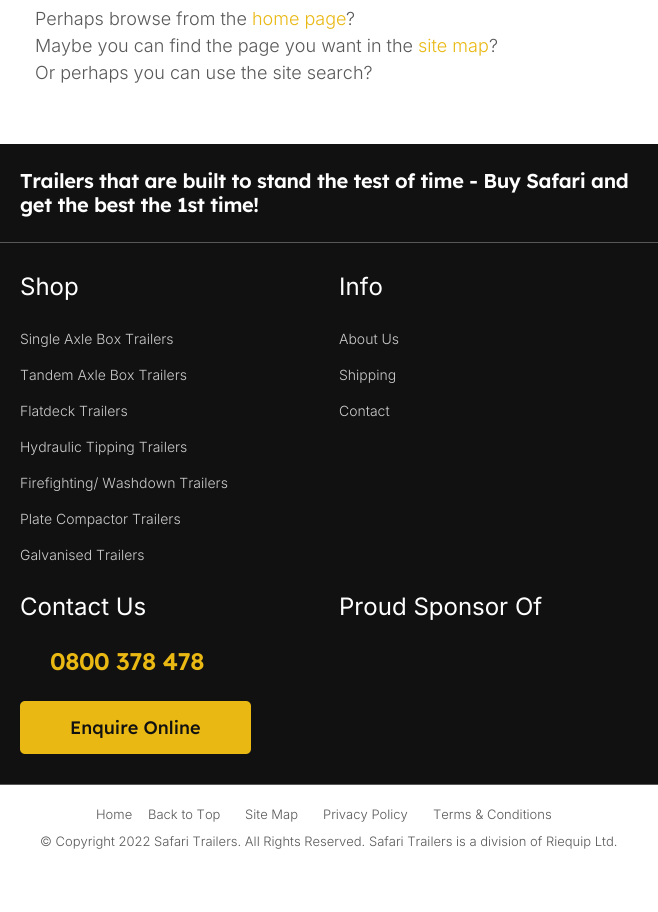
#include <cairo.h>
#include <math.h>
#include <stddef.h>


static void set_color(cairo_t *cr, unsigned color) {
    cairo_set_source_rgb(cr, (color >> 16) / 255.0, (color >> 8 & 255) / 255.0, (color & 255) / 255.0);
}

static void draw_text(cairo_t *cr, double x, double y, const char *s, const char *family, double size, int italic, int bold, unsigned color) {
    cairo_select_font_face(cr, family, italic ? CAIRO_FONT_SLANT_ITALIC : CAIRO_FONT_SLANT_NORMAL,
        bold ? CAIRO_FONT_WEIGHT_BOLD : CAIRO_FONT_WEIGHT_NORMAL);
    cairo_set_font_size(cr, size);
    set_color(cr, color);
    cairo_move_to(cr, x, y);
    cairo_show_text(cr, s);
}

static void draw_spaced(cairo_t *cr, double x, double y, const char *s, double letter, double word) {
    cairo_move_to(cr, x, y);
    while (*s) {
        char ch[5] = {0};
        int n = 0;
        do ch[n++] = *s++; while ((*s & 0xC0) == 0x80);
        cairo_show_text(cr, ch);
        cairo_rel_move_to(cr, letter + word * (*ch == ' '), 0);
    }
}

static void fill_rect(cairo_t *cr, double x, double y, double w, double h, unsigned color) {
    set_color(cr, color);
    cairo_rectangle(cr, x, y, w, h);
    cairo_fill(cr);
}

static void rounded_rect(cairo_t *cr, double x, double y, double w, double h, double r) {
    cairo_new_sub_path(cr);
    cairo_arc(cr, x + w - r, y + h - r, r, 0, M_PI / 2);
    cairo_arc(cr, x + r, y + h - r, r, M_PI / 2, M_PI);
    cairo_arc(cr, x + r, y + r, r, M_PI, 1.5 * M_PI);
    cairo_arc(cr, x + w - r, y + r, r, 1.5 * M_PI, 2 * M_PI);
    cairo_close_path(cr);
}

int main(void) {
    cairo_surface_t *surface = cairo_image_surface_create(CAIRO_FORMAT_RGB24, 658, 912);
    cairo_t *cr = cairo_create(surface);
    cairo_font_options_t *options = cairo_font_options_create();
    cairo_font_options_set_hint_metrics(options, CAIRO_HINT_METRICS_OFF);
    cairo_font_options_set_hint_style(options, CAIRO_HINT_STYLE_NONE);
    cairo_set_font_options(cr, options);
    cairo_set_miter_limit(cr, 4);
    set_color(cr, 0xFFFFFF);
    cairo_paint(cr);
    draw_text(cr, 35, 25, "Perhaps browse from the", "Inter Light", 18, 0, 0, 0x585858);
    draw_text(cr, 252, 25, "home page", "Inter Light", 18, 0, 0, 0xE9B813);
    draw_text(cr, 346, 25, "?", "Inter Light", 18, 0, 0, 0x585858);
    draw_text(cr, 35, 52, "Maybe you can find the page you want in the", "Inter Light", 18, 0, 0, 0x585858);
    draw_text(cr, 418, 52, "site map", "Inter Light", 18, 0, 0, 0xE9B813);
    draw_text(cr, 489, 52, "?", "Inter Light", 18, 0, 0, 0x585858);
    draw_text(cr, 35, 79, "Or perhaps you can use the site search?", "Inter Light", 18, 0, 0, 0x585858);
    fill_rect(cr, 0, 144, 658, 98, 0x111111);
    fill_rect(cr, 0, 242, 658, 1, 0x585858);
    cairo_select_font_face(cr, "Lexend SemiBold", CAIRO_FONT_SLANT_NORMAL, CAIRO_FONT_WEIGHT_NORMAL);
    cairo_set_font_size(cr, 20);
    set_color(cr, 0xFFFFFF);
    draw_spaced(cr, 20, 188, "Trailers that are built to stand the test of time - Buy Safari and", -0.4, 0);
    draw_spaced(cr, 20, 212, "get the best the 1st time!", -0.4, 0);
    fill_rect(cr, 0, 243, 658, 541, 0x111111);
    fill_rect(cr, 0, 784, 658, 1, 0x585858);
    draw_text(cr, 20, 295, "Shop", "Inter", 24, 0, 0, 0xFFFFFF);
    draw_text(cr, 20, 344, "Single Axle Box Trailers", "Inter Light", 14, 0, 0, 0xCCCCCC);
    draw_text(cr, 20, 380, "Tandem Axle Box Trailers", "Inter Light", 14, 0, 0, 0xCCCCCC);
    draw_text(cr, 20, 416, "Flatdeck Trailers", "Inter Light", 14, 0, 0, 0xCCCCCC);
    draw_text(cr, 20, 452, "Hydraulic Tipping Trailers", "Inter Light", 14, 0, 0, 0xCCCCCC);
    draw_text(cr, 20, 488, "Firefighting/ Washdown Trailers", "Inter Light", 14, 0, 0, 0xCCCCCC);
    draw_text(cr, 20, 524, "Plate Compactor Trailers", "Inter Light", 14, 0, 0, 0xCCCCCC);
    draw_text(cr, 20, 560, "Galvanised Trailers", "Inter Light", 14, 0, 0, 0xCCCCCC);
    draw_text(cr, 339, 295, "Info", "Inter", 24, 0, 0, 0xFFFFFF);
    draw_text(cr, 339, 344, "About Us", "Inter Light", 14, 0, 0, 0xCCCCCC);
    draw_text(cr, 339, 380, "Shipping", "Inter Light", 14, 0, 0, 0xCCCCCC);
    draw_text(cr, 339, 416, "Contact", "Inter Light", 14, 0, 0, 0xCCCCCC);
    draw_text(cr, 20, 615, "Contact Us", "Inter", 24, 0, 0, 0xFFFFFF);
    cairo_select_font_face(cr, "Lexend SemiBold", CAIRO_FONT_SLANT_NORMAL, CAIRO_FONT_WEIGHT_NORMAL);
    set_color(cr, 0xE9B813);
    draw_spaced(cr, 50, 670, "0800 378 478", -0.5, 0);
    rounded_rect(cr, 20, 701, 231, 53, 5);
    cairo_fill(cr);
    draw_text(cr, 70, 734, "Enquire Online", "Lexend Medium", 18, 0, 0, 0x111111);
    draw_text(cr, 339, 615, "Proud Sponsor Of", "Inter", 24, 0, 0, 0xFFFFFF);
    draw_text(cr, 96, 819, "Home", "Inter Light", 13, 0, 0, 0x585858);
    draw_text(cr, 148, 819, "Back to Top", "Inter Light", 13, 0, 0, 0x585858);
    draw_text(cr, 245, 819, "Site Map", "Inter Light", 13, 0, 0, 0x585858);
    draw_text(cr, 323, 819, "Privacy Policy", "Inter Light", 13, 0, 0, 0x585858);
    draw_text(cr, 433, 819, "Terms & Conditions", "Inter Light", 13, 0, 0, 0x585858);
    draw_text(cr, 40, 846, "© Copyright 2022 Safari Trailers. All Rights Reserved. Safari Trailers is a division of Riequip Ltd.", "Inter Light", 13, 0, 0, 0x585858);
    cairo_surface_write_to_png(surface, "output.png");
    cairo_font_options_destroy(options);
    cairo_destroy(cr);
    cairo_surface_destroy(surface);
    return 0;
}
